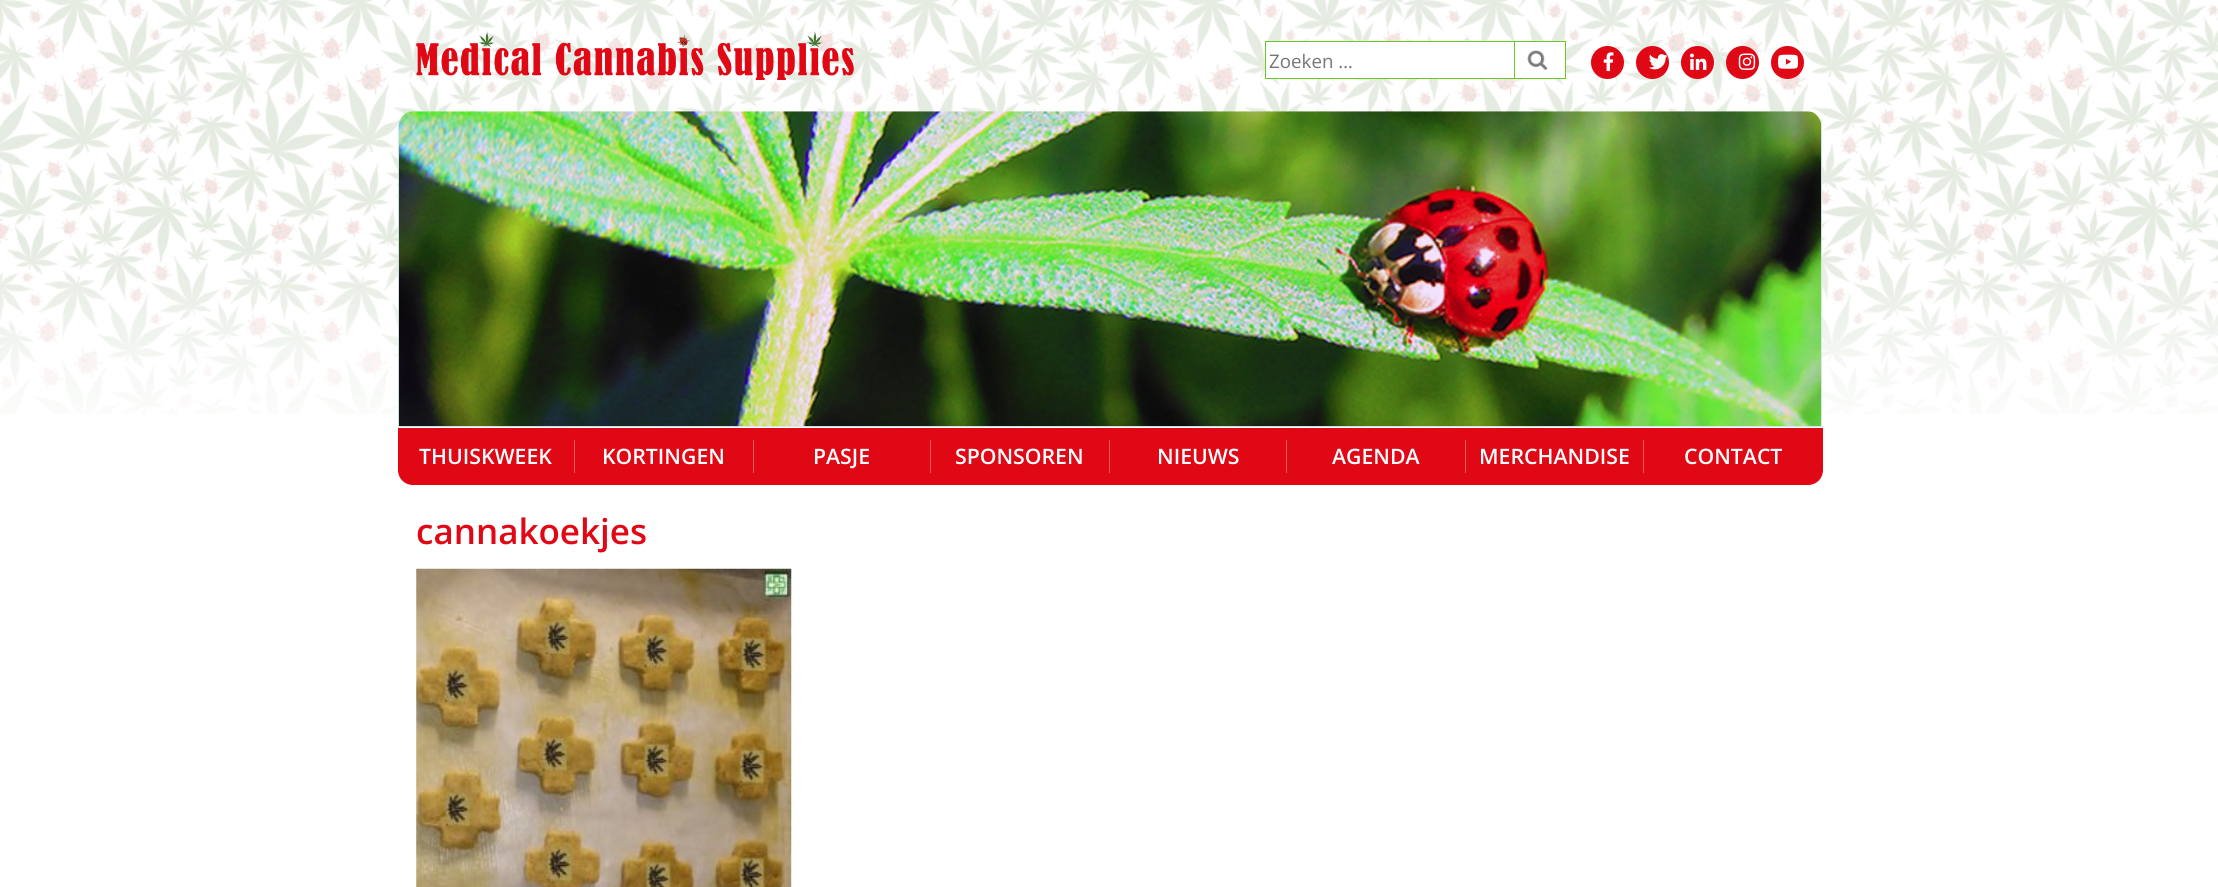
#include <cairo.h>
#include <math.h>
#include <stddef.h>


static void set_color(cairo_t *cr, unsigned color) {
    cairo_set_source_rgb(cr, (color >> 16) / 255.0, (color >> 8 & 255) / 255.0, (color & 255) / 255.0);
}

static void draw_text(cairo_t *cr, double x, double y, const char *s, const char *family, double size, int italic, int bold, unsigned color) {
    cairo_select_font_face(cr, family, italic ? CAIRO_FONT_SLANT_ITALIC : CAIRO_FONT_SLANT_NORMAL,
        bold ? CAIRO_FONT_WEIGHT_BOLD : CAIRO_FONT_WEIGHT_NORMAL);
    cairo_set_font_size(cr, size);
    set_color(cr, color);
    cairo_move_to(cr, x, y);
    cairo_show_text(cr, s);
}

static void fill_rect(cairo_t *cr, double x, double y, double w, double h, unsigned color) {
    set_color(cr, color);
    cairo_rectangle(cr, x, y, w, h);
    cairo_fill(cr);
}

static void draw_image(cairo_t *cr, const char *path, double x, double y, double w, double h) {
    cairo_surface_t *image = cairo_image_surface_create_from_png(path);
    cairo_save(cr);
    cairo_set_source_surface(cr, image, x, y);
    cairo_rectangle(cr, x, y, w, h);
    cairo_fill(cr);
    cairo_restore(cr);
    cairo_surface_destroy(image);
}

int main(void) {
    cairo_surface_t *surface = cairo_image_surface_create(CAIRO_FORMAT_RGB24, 2218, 887);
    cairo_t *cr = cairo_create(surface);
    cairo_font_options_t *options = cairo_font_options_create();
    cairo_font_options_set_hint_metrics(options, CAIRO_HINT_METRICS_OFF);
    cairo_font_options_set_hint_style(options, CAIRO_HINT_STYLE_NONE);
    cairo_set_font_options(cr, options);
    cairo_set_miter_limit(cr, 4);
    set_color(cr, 0xFFFFFF);
    cairo_paint(cr);
    draw_image(cr, "assets/img1.png", 0, 0, 2218, 414);
    draw_image(cr, "assets/img2.png", 416, 31, 438, 49);
    set_color(cr, 0xFFFFFF);
    cairo_rectangle(cr, 1265.5, 41.5, 249, 37);
    cairo_fill_preserve(cr);
    set_color(cr, 0x6AC823);
    cairo_set_line_width(cr, 1);
    cairo_stroke(cr);
    draw_text(cr, 1269, 68, "Zoeken …", "Open Sans", 18.75, 0, 0, 0x757575);
    fill_rect(cr, 1515, 42, 50, 36, 0xFFFFFF);
    draw_image(cr, "assets/img3.png", 1527, 50, 21, 20);
    cairo_rectangle(cr, 1514.5, 41.5, 51, 37);
    set_color(cr, 0x6AC823);
    cairo_stroke(cr);
    set_color(cr, 0xE10816);
    cairo_arc(cr, 1607.5, 62.5, 16.5, 0, 2 * M_PI);
    cairo_fill(cr);
    draw_image(cr, "assets/img4.png", 1603, 52, 11, 20);
    cairo_arc(cr, 1652.5, 62.5, 16.5, 0, 2 * M_PI);
    cairo_fill(cr);
    draw_image(cr, "assets/img5.png", 1649, 54, 19, 16);
    cairo_arc(cr, 1697.5, 62.5, 16.5, 0, 2 * M_PI);
    cairo_fill(cr);
    draw_image(cr, "assets/img6.png", 1690, 53, 17, 17);
    cairo_arc(cr, 1742.5, 62.5, 16.5, 0, 2 * M_PI);
    cairo_fill(cr);
    draw_image(cr, "assets/img7.png", 1738, 53, 18, 17);
    cairo_arc(cr, 1787.5, 62.5, 16.5, 0, 2 * M_PI);
    cairo_fill(cr);
    draw_image(cr, "assets/img8.png", 1778, 54, 21, 15);
    fill_rect(cr, 1821, 119, 1, 309, 0xD8EDED);
    fill_rect(cr, 398, 426, 1425, 1, 0xD8EDED);
    fill_rect(cr, 398, 119, 1, 309, 0xD8EDED);
    draw_image(cr, "assets/img9.png", 398, 111, 1424, 316);
    set_color(cr, 0xE10816);
    cairo_new_path(cr);
    cairo_move_to(cr, 398, 428);
    cairo_line_to(cr, 1823, 428);
    cairo_line_to(cr, 1823, 470);
    cairo_curve_to(cr, 1823, 478.5, 1816.5, 485, 1808, 485);
    cairo_line_to(cr, 413, 485);
    cairo_curve_to(cr, 404.5, 485, 398, 478.5, 398, 470);
    cairo_close_path(cr);
    cairo_fill(cr);
    fill_rect(cr, 574, 440, 1, 33, 0xEB5A63);
    draw_text(cr, 419, 464, "THUISKWEEK", "Open Sans SemiBold", 21.25, 0, 0, 0xFFFFFF);
    fill_rect(cr, 753, 440, 1, 33, 0xEB5A63);
    draw_text(cr, 602, 464, "KORTINGEN", "Open Sans SemiBold", 21.25, 0, 0, 0xFFFFFF);
    fill_rect(cr, 930, 440, 1, 33, 0xEB5A63);
    draw_text(cr, 813, 464, "PASJE", "Open Sans SemiBold", 21.25, 0, 0, 0xFFFFFF);
    fill_rect(cr, 1109, 440, 1, 33, 0xEB5A63);
    draw_text(cr, 955, 464, "SPONSOREN", "Open Sans SemiBold", 21.25, 0, 0, 0xFFFFFF);
    fill_rect(cr, 1286, 440, 1, 33, 0xEB5A63);
    draw_text(cr, 1157, 464, "NIEUWS", "Open Sans SemiBold", 21.25, 0, 0, 0xFFFFFF);
    fill_rect(cr, 1465, 440, 1, 33, 0xEB5A63);
    draw_text(cr, 1332, 464, "AGENDA", "Open Sans SemiBold", 21.25, 0, 0, 0xFFFFFF);
    fill_rect(cr, 1643, 440, 1, 33, 0xEB5A63);
    draw_text(cr, 1479, 464, "MERCHANDISE", "Open Sans SemiBold", 21.25, 0, 0, 0xFFFFFF);
    draw_text(cr, 1684, 464, "CONTACT", "Open Sans SemiBold", 21.25, 0, 0, 0xFFFFFF);
    draw_text(cr, 416, 544, "cannakoekjes", "Open Sans SemiBold", 35, 0, 0, 0xE10816);
    draw_image(cr, "assets/img10.png", 416, 568, 376, 319);
    cairo_surface_write_to_png(surface, "output.png");
    cairo_font_options_destroy(options);
    cairo_destroy(cr);
    cairo_surface_destroy(surface);
    return 0;
}
